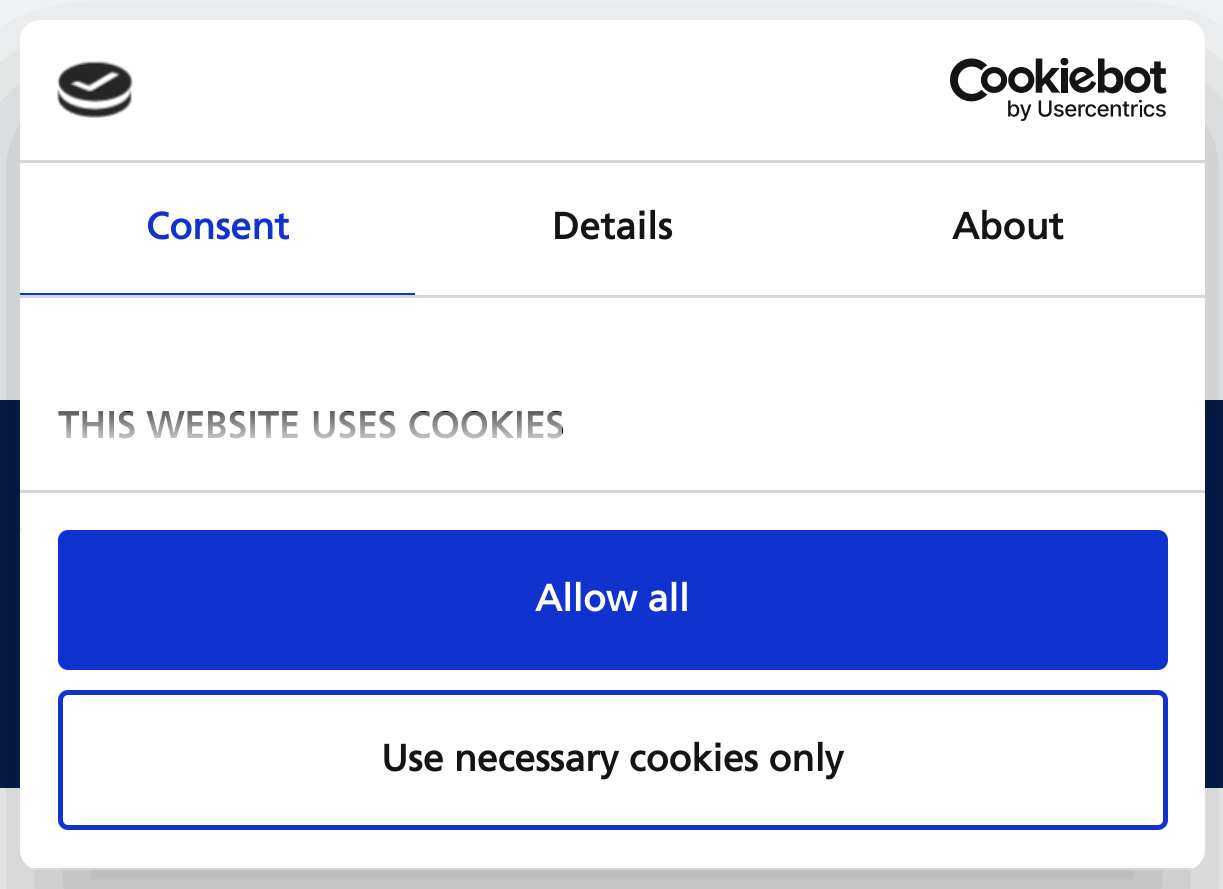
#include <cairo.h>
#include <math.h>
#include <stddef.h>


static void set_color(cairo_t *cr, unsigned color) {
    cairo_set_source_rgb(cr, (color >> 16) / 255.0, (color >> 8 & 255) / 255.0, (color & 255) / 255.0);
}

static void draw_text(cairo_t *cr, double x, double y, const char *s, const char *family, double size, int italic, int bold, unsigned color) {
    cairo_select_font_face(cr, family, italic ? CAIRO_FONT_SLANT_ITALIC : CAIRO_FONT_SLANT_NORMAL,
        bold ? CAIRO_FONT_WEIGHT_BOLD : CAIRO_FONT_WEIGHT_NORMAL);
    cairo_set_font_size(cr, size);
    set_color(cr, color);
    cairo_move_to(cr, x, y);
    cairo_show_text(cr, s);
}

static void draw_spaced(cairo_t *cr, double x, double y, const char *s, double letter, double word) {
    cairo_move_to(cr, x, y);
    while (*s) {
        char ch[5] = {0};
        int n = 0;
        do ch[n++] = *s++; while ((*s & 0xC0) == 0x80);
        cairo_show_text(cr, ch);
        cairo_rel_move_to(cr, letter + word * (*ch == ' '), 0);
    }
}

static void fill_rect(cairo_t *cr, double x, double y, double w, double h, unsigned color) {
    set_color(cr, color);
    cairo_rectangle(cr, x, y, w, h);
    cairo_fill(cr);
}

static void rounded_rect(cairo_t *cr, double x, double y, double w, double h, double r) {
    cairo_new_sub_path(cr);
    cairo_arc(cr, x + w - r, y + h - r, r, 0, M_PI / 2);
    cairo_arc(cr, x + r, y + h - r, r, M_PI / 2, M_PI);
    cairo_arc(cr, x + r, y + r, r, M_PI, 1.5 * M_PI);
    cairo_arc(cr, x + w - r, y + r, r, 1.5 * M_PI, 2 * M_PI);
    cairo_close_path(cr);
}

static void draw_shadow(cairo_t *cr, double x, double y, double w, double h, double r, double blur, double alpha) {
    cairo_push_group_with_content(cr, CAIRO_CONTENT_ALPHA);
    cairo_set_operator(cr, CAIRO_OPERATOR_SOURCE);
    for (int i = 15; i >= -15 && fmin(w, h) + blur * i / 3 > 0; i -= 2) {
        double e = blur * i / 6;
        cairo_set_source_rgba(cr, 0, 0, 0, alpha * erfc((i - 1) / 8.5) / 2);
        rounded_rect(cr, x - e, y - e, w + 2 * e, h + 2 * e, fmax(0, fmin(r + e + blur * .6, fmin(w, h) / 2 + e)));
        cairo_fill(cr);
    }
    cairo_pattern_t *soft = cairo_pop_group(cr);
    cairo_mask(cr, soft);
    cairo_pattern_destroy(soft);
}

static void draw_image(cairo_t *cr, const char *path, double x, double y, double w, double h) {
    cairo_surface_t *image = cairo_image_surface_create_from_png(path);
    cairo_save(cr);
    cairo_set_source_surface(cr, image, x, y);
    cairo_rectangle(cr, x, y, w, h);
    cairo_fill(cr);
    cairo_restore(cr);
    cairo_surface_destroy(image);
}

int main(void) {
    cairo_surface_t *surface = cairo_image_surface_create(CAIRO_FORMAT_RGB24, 1223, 889);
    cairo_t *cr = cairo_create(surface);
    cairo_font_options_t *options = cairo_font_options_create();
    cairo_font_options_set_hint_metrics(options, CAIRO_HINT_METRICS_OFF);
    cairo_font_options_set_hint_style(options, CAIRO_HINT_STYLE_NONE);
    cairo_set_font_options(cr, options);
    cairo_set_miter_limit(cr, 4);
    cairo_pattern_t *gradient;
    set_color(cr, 0xFFFFFF);
    cairo_paint(cr);
    fill_rect(cr, 0, 0, 1223, 400, 0xF6F8F9);
    fill_rect(cr, 0, 400, 1223, 388, 0x061E4F);
    set_color(cr, 0x000000);
    draw_shadow(cr, 20, 100, 1185, 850, 20, 85, 0.3);
    set_color(cr, 0xFFFFFF);
    rounded_rect(cr, 20, 20, 1185, 850, 20);
    cairo_fill(cr);
    fill_rect(cr, 20, 160, 1185, 3, 0xD6D6D6);
    draw_image(cr, "assets/img1.png", 57, 61, 76, 57);
    draw_image(cr, "assets/img2.png", 950, 58, 217, 63);
    fill_rect(cr, 20, 295, 1185, 3, 0xD6D6D6);
    fill_rect(cr, 20, 293, 395, 2, 0x1032CF);
    cairo_select_font_face(cr, "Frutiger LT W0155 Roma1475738", CAIRO_FONT_SLANT_NORMAL, CAIRO_FONT_WEIGHT_BOLD);
    cairo_set_font_size(cr, 37.5);
    draw_spaced(cr, 146, 239, "Consent", 0.25, 0);
    set_color(cr, 0x141414);
    draw_spaced(cr, 552, 239, "Details", 0.25, 0);
    draw_spaced(cr, 952, 239, "About", 0.25, 0);
    fill_rect(cr, 20, 490, 1185, 3, 0xD6D6D6);
    cairo_set_font_size(cr, 36.7);
    set_color(cr, 0x141414);
    draw_spaced(cr, 58, 438, "THIS WEBSITE USES COOKIES", 0.6, 0);
    gradient = cairo_pattern_create_linear(596, 490, 596, 393);
    cairo_pattern_add_color_stop_rgba(gradient, 0, 1, 1, 1, 1);
    cairo_pattern_add_color_stop_rgba(gradient, 0.5, 1, 1, 1, 0.8);
    cairo_pattern_add_color_stop_rgba(gradient, 1, 1, 1, 1, 0);
    cairo_set_source(cr, gradient);
    cairo_pattern_destroy(gradient);
    cairo_rectangle(cr, 57, 412, 505, 27);
    cairo_fill(cr);
    fill_rect(cr, 20, 528, 1, 3, 0xE5E5E5);
    cairo_save(cr);
    rounded_rect(cr, 20, 20, 1185, 850, 20);
    cairo_clip(cr);
    fill_rect(cr, 31, 868, 1163, 2, 0xD6D6D6);
    cairo_restore(cr);
    set_color(cr, 0x1032CF);
    rounded_rect(cr, 60.5, 532.5, 1105, 135, 7.5);
    cairo_fill_preserve(cr);
    cairo_set_line_width(cr, 5);
    cairo_stroke(cr);
    draw_text(cr, 535, 611, "Allow all", "Frutiger LT W0155 Roma1475738", 37.5, 0, 1, 0xFFFFFF);
    rounded_rect(cr, 60.5, 692.5, 1105, 135, 7.5);
    set_color(cr, 0x1032CF);
    cairo_stroke(cr);
    draw_text(cr, 381, 771, "Use necessary cookies only", "Frutiger LT W0155 Roma1475738", 37.5, 0, 1, 0x141414);
    cairo_surface_write_to_png(surface, "output.png");
    cairo_font_options_destroy(options);
    cairo_destroy(cr);
    cairo_surface_destroy(surface);
    return 0;
}
